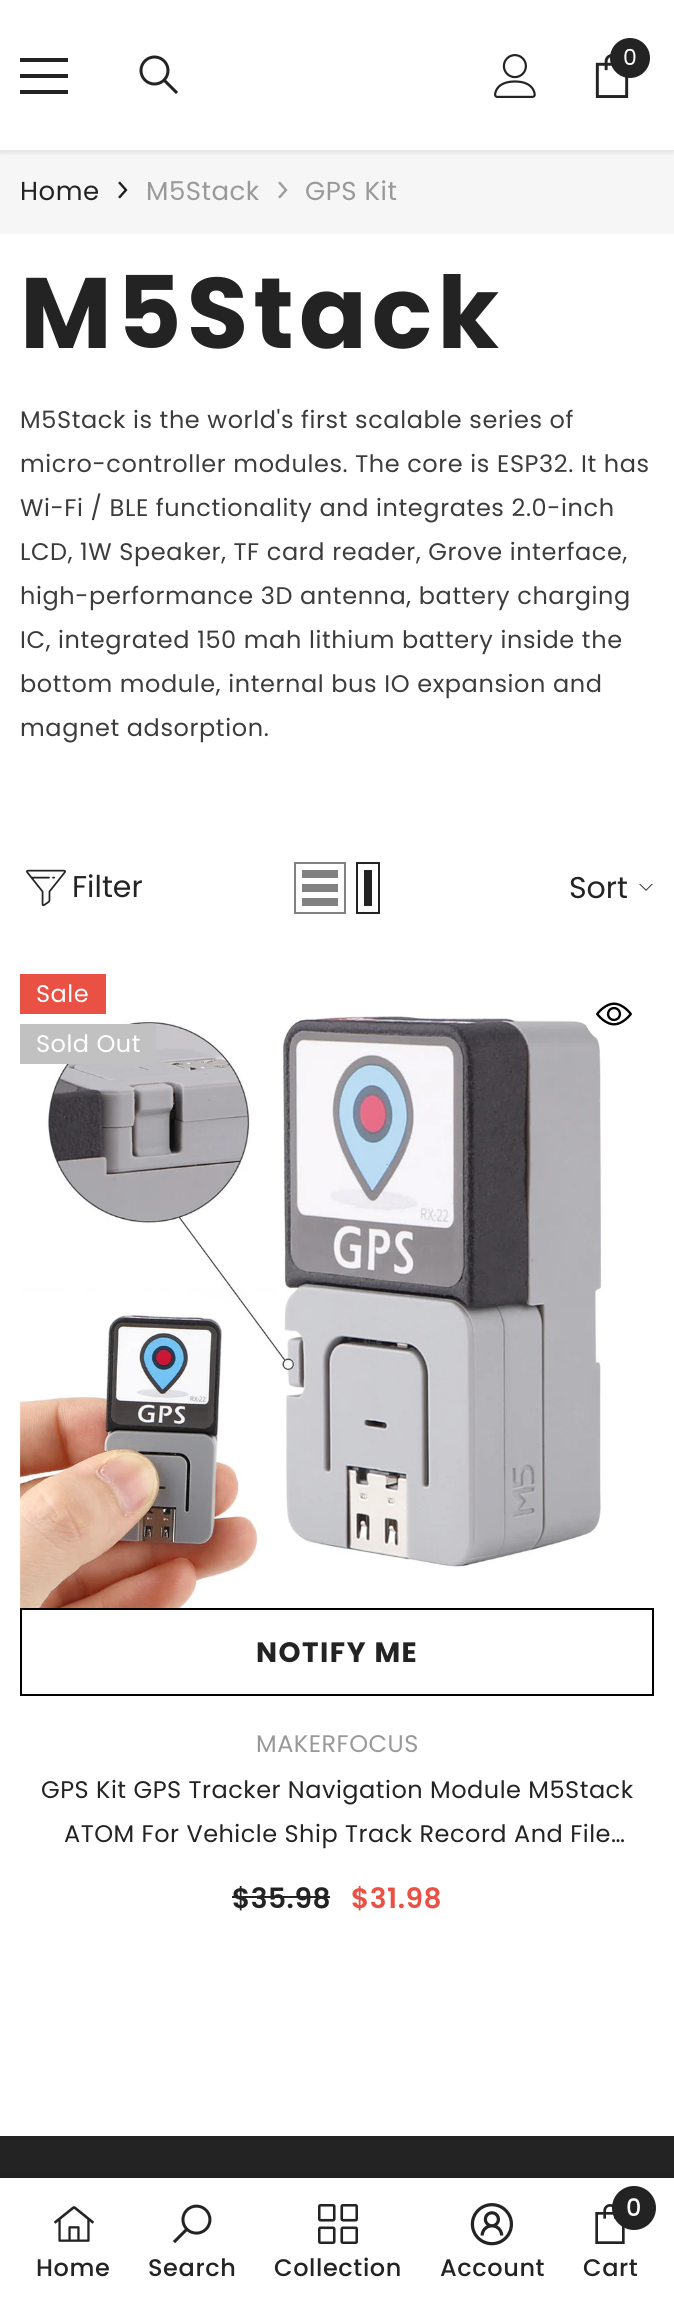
#include <cairo.h>
#include <math.h>
#include <stddef.h>


static void set_color(cairo_t *cr, unsigned color) {
    cairo_set_source_rgb(cr, (color >> 16) / 255.0, (color >> 8 & 255) / 255.0, (color & 255) / 255.0);
}

static void draw_text(cairo_t *cr, double x, double y, const char *s, const char *family, double size, int italic, int bold, unsigned color) {
    cairo_select_font_face(cr, family, italic ? CAIRO_FONT_SLANT_ITALIC : CAIRO_FONT_SLANT_NORMAL,
        bold ? CAIRO_FONT_WEIGHT_BOLD : CAIRO_FONT_WEIGHT_NORMAL);
    cairo_set_font_size(cr, size);
    set_color(cr, color);
    cairo_move_to(cr, x, y);
    cairo_show_text(cr, s);
}

static void draw_spaced(cairo_t *cr, double x, double y, const char *s, double letter, double word) {
    cairo_move_to(cr, x, y);
    while (*s) {
        char ch[5] = {0};
        int n = 0;
        do ch[n++] = *s++; while ((*s & 0xC0) == 0x80);
        cairo_show_text(cr, ch);
        cairo_rel_move_to(cr, letter + word * (*ch == ' '), 0);
    }
}

static void fill_rect(cairo_t *cr, double x, double y, double w, double h, unsigned color) {
    set_color(cr, color);
    cairo_rectangle(cr, x, y, w, h);
    cairo_fill(cr);
}

static void rounded_rect(cairo_t *cr, double x, double y, double w, double h, double r) {
    cairo_new_sub_path(cr);
    cairo_arc(cr, x + w - r, y + h - r, r, 0, M_PI / 2);
    cairo_arc(cr, x + r, y + h - r, r, M_PI / 2, M_PI);
    cairo_arc(cr, x + r, y + r, r, M_PI, 1.5 * M_PI);
    cairo_arc(cr, x + w - r, y + r, r, 1.5 * M_PI, 2 * M_PI);
    cairo_close_path(cr);
}

static void draw_shadow(cairo_t *cr, double x, double y, double w, double h, double r, double blur, double alpha) {
    cairo_push_group_with_content(cr, CAIRO_CONTENT_ALPHA);
    cairo_set_operator(cr, CAIRO_OPERATOR_SOURCE);
    for (int i = 15; i >= -15 && fmin(w, h) + blur * i / 3 > 0; i -= 2) {
        double e = blur * i / 6;
        cairo_set_source_rgba(cr, 0, 0, 0, alpha * erfc((i - 1) / 8.5) / 2);
        rounded_rect(cr, x - e, y - e, w + 2 * e, h + 2 * e, fmax(0, fmin(r + e + blur * .6, fmin(w, h) / 2 + e)));
        cairo_fill(cr);
    }
    cairo_pattern_t *soft = cairo_pop_group(cr);
    cairo_mask(cr, soft);
    cairo_pattern_destroy(soft);
}

static void draw_image(cairo_t *cr, const char *path, double x, double y, double w, double h) {
    cairo_surface_t *image = cairo_image_surface_create_from_png(path);
    cairo_save(cr);
    cairo_set_source_surface(cr, image, x, y);
    cairo_rectangle(cr, x, y, w, h);
    cairo_fill(cr);
    cairo_restore(cr);
    cairo_surface_destroy(image);
}

int main(void) {
    cairo_surface_t *surface = cairo_image_surface_create(CAIRO_FORMAT_RGB24, 674, 2302);
    cairo_t *cr = cairo_create(surface);
    cairo_font_options_t *options = cairo_font_options_create();
    cairo_font_options_set_hint_metrics(options, CAIRO_HINT_METRICS_OFF);
    cairo_font_options_set_hint_style(options, CAIRO_HINT_STYLE_NONE);
    cairo_set_font_options(cr, options);
    cairo_set_miter_limit(cr, 4);
    set_color(cr, 0xFFFFFF);
    cairo_paint(cr);
    fill_rect(cr, 0, 150, 674, 84, 0xF6F6F6);
    cairo_save(cr);
    cairo_rectangle(cr, 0, 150, 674, 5);
    cairo_clip(cr);
    set_color(cr, 0x000000);
    draw_shadow(cr, 0, 2, 674, 150, 0, 3, 0.1);
    cairo_restore(cr);
    fill_rect(cr, 20, 74, 48, 4, 0x232323);
    fill_rect(cr, 20, 58, 48, 4, 0x232323);
    fill_rect(cr, 20, 90, 48, 4, 0x232323);
    draw_image(cr, "assets/img1.png", 139, 55, 39, 39);
    draw_image(cr, "assets/img2.png", 494, 54, 42, 44);
    draw_image(cr, "assets/img3.png", 595, 54, 34, 44);
    cairo_arc(cr, 630, 58, 20, 0, 2 * M_PI);
    cairo_fill(cr);
    draw_text(cr, 623, 65, "0", "Poppins", 22, 0, 0, 0xFFFFFF);
    cairo_set_font_size(cr, 26);
    set_color(cr, 0x232323);
    draw_spaced(cr, 20, 200, "Home", 0.5, 0);
    draw_image(cr, "assets/img4.png", 118, 181, 10, 18);
    set_color(cr, 0x999999);
    draw_spaced(cr, 146, 200, "M5Stack", 0.5, 0);
    draw_image(cr, "assets/img5.png", 278, 181, 10, 18);
    draw_spaced(cr, 305, 200, "GPS Kit", 0.5, 0);
    cairo_select_font_face(cr, "Poppins", CAIRO_FONT_SLANT_NORMAL, CAIRO_FONT_WEIGHT_BOLD);
    cairo_set_font_size(cr, 100);
    set_color(cr, 0x232323);
    draw_spaced(cr, 20, 348, "M5Stack", 5, 0);
    cairo_select_font_face(cr, "Poppins", CAIRO_FONT_SLANT_NORMAL, CAIRO_FONT_WEIGHT_NORMAL);
    cairo_set_font_size(cr, 24);
    set_color(cr, 0x3C3C3C);
    draw_spaced(cr, 20, 428, "M5Stack is the world's first scalable series of", 0.6, 0);
    draw_spaced(cr, 20, 472, "micro-controller modules. The core is ESP32. It has", 0.6, 0);
    draw_spaced(cr, 20, 516, "Wi-Fi / BLE functionality and integrates 2.0-inch", 0.6, 0);
    draw_spaced(cr, 20, 560, "LCD, 1W Speaker, TF card reader, Grove interface,", 0.6, 0);
    draw_spaced(cr, 20, 604, "high-performance 3D antenna, battery charging", 0.6, 0);
    draw_spaced(cr, 20, 648, "IC, integrated 150 mah lithium battery inside the", 0.6, 0);
    draw_spaced(cr, 20, 692, "bottom module, internal bus IO expansion and", 0.6, 0);
    draw_spaced(cr, 20, 736, "magnet adsorption.", 0.6, 0);
    draw_image(cr, "assets/img6.png", 26, 869, 40, 38);
    draw_text(cr, 72, 897, "Filter", "Poppins", 30, 0, 0, 0x232323);
    cairo_rectangle(cr, 295, 863, 50, 50);
    set_color(cr, 0x808080);
    cairo_stroke(cr);
    fill_rect(cr, 302, 898, 36, 8, 0x808080);
    fill_rect(cr, 302, 884, 36, 8, 0x808080);
    fill_rect(cr, 302, 870, 36, 8, 0x808080);
    cairo_rectangle(cr, 357, 863, 22, 50);
    set_color(cr, 0x232323);
    cairo_stroke(cr);
    fill_rect(cr, 364, 870, 8, 36, 0x232323);
    draw_text(cr, 569, 898, "Sort", "Poppins", 30, 0, 0, 0x232323);
    draw_image(cr, "assets/img7.png", 639, 884, 14, 7);
    fill_rect(cr, 20, 974, 86, 40, 0xE95144);
    cairo_set_font_size(cr, 24);
    set_color(cr, 0xFFFFFF);
    draw_spaced(cr, 36, 1002, "Sale", 0.5, 0);
    draw_image(cr, "assets/img9.png", 20, 1015, 583, 593);
    fill_rect(cr, 20, 1024, 136, 40, 0xC1C1C1);
    set_color(cr, 0xFFFFFF);
    draw_spaced(cr, 36, 1052, "Sold Out", 0.5, 0);
    cairo_new_path(cr);
    cairo_arc(cr, 614, 1014, 30, 0, 2 * M_PI);
    cairo_fill(cr);
    draw_image(cr, "assets/img8.png", 596, 1002, 36, 24);
    cairo_rectangle(cr, 21, 1609, 632, 86);
    set_color(cr, 0x000000);
    cairo_stroke(cr);
    cairo_select_font_face(cr, "Poppins", CAIRO_FONT_SLANT_NORMAL, CAIRO_FONT_WEIGHT_BOLD);
    cairo_set_font_size(cr, 28);
    set_color(cr, 0x232323);
    draw_spaced(cr, 256, 1662, "NOTIFY ME", 1.5, 0);
    cairo_select_font_face(cr, "Poppins", CAIRO_FONT_SLANT_NORMAL, CAIRO_FONT_WEIGHT_NORMAL);
    cairo_set_font_size(cr, 24);
    set_color(cr, 0x999999);
    draw_spaced(cr, 256, 1752, "MAKERFOCUS", 0.5, 0);
    set_color(cr, 0x232323);
    draw_spaced(cr, 41, 1798, "GPS Kit GPS Tracker Navigation Module M5Stack", 0.5, 0);
    draw_spaced(cr, 64, 1842, "ATOM For Vehicle Ship Track Record And File…", 0.5, 0);
    cairo_select_font_face(cr, "Poppins SemiBold", CAIRO_FONT_SLANT_NORMAL, CAIRO_FONT_WEIGHT_NORMAL);
    cairo_set_font_size(cr, 28);
    draw_spaced(cr, 232, 1908, "$35.98", 0.5, 0);
    fill_rect(cr, 232, 1896, 98, 2, 0x232323);
    set_color(cr, 0xE95144);
    draw_spaced(cr, 351, 1908, "$31.98", 0.5, 0);
    fill_rect(cr, 0, 2136, 674, 42, 0x232323);
    set_color(cr, 0x000000);
    draw_shadow(cr, 0, 2178, 674, 124, 0, 9, 0.12);
    fill_rect(cr, 0, 2178, 674, 124, 0xFFFFFF);
    draw_image(cr, "assets/img10.png", 54, 2206, 40, 36);
    cairo_select_font_face(cr, "Poppins Medium", CAIRO_FONT_SLANT_NORMAL, CAIRO_FONT_WEIGHT_NORMAL);
    cairo_set_font_size(cr, 24);
    set_color(cr, 0x232323);
    draw_spaced(cr, 36, 2276, "Home", 0.6, 0);
    draw_image(cr, "assets/img11.png", 173, 2204, 39, 40);
    draw_spaced(cr, 148, 2276, "Search", 0.6, 0);
    draw_image(cr, "assets/img12.png", 318, 2204, 40, 40);
    draw_spaced(cr, 274, 2276, "Collection", 0.6, 0);
    draw_image(cr, "assets/img13.png", 470, 2203, 43, 43);
    draw_spaced(cr, 440, 2276, "Account", 0.6, 0);
    draw_image(cr, "assets/img14.png", 595, 2204, 30, 40);
    cairo_arc(cr, 634, 2208, 22, 0, 2 * M_PI);
    cairo_fill(cr);
    draw_text(cr, 626, 2216, "0", "Poppins Medium", 24, 0, 0, 0xFFFFFF);
    set_color(cr, 0x232323);
    draw_spaced(cr, 583, 2276, "Cart", 0.6, 0);
    cairo_surface_write_to_png(surface, "output.png");
    cairo_font_options_destroy(options);
    cairo_destroy(cr);
    cairo_surface_destroy(surface);
    return 0;
}
